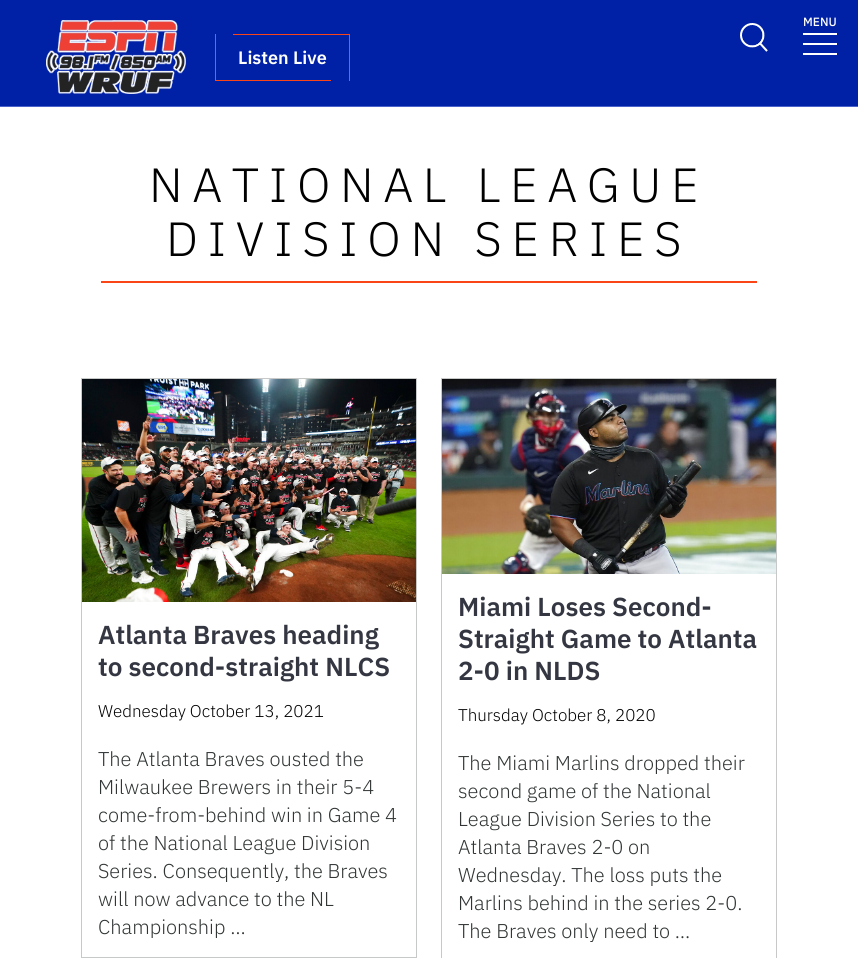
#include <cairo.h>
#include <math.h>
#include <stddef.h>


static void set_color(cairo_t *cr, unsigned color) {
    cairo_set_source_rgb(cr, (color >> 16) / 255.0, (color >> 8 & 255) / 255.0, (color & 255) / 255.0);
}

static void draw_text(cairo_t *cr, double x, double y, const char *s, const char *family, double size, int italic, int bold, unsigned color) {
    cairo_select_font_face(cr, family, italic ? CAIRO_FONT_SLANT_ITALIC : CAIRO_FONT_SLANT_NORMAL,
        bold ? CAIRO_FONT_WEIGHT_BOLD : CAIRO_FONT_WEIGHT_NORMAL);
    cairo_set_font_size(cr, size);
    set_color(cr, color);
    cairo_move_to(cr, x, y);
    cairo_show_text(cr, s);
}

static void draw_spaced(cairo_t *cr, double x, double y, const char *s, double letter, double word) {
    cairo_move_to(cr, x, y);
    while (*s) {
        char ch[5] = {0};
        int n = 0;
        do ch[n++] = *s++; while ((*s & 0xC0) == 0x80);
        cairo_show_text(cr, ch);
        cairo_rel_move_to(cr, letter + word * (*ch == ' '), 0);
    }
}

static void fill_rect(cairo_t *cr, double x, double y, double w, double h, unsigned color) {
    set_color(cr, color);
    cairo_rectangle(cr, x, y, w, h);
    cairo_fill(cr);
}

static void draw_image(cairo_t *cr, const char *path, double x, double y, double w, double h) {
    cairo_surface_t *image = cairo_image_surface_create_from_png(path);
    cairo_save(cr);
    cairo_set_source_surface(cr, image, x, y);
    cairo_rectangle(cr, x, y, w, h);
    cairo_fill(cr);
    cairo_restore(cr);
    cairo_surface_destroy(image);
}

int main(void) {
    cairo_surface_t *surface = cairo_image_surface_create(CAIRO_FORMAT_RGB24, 858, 958);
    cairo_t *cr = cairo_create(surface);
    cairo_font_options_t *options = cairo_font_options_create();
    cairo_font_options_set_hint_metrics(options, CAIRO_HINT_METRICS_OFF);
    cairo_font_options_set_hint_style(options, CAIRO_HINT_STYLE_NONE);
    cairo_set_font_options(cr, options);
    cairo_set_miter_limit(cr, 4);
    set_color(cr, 0xFFFFFF);
    cairo_paint(cr);
    fill_rect(cr, 0, 0, 858, 106, 0x0021A5);
    fill_rect(cr, 0, 106, 858, 1, 0x4A63CB);
    draw_text(cr, 803, 26, "MENU", "IBM Plex Sans Medium", 12, 0, 0, 0xFFFFFF);
    fill_rect(cr, 803, 43, 34, 2, 0xFFFFFF);
    fill_rect(cr, 803, 33, 34, 2, 0xFFFFFF);
    fill_rect(cr, 803, 53, 34, 2, 0xFFFFFF);
    draw_image(cr, "assets/img1.png", 740, 23, 28, 29);
    draw_image(cr, "assets/img2.png", 46, 20, 140, 74);
    fill_rect(cr, 349, 34, 1, 47, 0xFA4616);
    fill_rect(cr, 215, 34, 1, 47, 0xFA4616);
    fill_rect(cr, 233, 34, 116, 1, 0xFA4616);
    draw_text(cr, 238, 64, "Listen Live", "IBM Plex Sans SemiBold", 18, 0, 0, 0xFFFFFF);
    fill_rect(cr, 216, 80, 115, 1, 0xFA4616);
    cairo_select_font_face(cr, "IBM Plex Sans Light", CAIRO_FONT_SLANT_NORMAL, CAIRO_FONT_WEIGHT_NORMAL);
    cairo_set_font_size(cr, 48);
    set_color(cr, 0x000000);
    draw_spaced(cr, 149, 202, "NATIONAL LEAGUE", 9.6, 0);
    draw_spaced(cr, 166, 256, "DIVISION SERIES", 9.6, 0);
    fill_rect(cr, 101, 281, 656, 2, 0xFA4616);
    cairo_rectangle(cr, 81.5, 378.5, 335, 579);
    set_color(cr, 0xC7C9C8);
    cairo_set_line_width(cr, 1);
    cairo_stroke(cr);
    draw_image(cr, "assets/img3.png", 82, 379, 334, 223);
    draw_text(cr, 98, 644, "Atlanta Braves heading", "IBM Plex Sans SemiBold", 26, 0, 0, 0x343741);
    draw_text(cr, 98, 676, "to second-straight NLCS", "IBM Plex Sans SemiBold", 26, 0, 0, 0x343741);
    draw_text(cr, 98, 717, "Wednesday October 13, 2021", "IBM Plex Sans Light", 17, 0, 0, 0x000000);
    draw_text(cr, 98, 766, "The Atlanta Braves ousted the", "IBM Plex Sans Light", 20, 0, 0, 0x313535);
    draw_text(cr, 98, 794, "Milwaukee Brewers in their 5-4", "IBM Plex Sans Light", 20, 0, 0, 0x313535);
    draw_text(cr, 98, 822, "come-from-behind win in Game 4", "IBM Plex Sans Light", 20, 0, 0, 0x313535);
    draw_text(cr, 98, 850, "of the National League Division", "IBM Plex Sans Light", 20, 0, 0, 0x313535);
    draw_text(cr, 98, 878, "Series. Consequently, the Braves", "IBM Plex Sans Light", 20, 0, 0, 0x313535);
    draw_text(cr, 98, 906, "will now advance to the NL", "IBM Plex Sans Light", 20, 0, 0, 0x313535);
    draw_text(cr, 98, 934, "Championship …", "IBM Plex Sans Light", 20, 0, 0, 0x313535);
    cairo_rectangle(cr, 441.5, 378.5, 335, 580);
    set_color(cr, 0xC7C9C8);
    cairo_stroke(cr);
    draw_image(cr, "assets/img4.png", 442, 379, 334, 195);
    draw_text(cr, 458, 616, "Miami Loses Second-", "IBM Plex Sans SemiBold", 26, 0, 0, 0x343741);
    draw_text(cr, 458, 648, "Straight Game to Atlanta", "IBM Plex Sans SemiBold", 26, 0, 0, 0x343741);
    draw_text(cr, 458, 680, "2-0 in NLDS", "IBM Plex Sans SemiBold", 26, 0, 0, 0x343741);
    draw_text(cr, 458, 721, "Thursday October 8, 2020", "IBM Plex Sans Light", 17, 0, 0, 0x000000);
    draw_text(cr, 458, 770, "The Miami Marlins dropped their", "IBM Plex Sans Light", 20, 0, 0, 0x313535);
    draw_text(cr, 458, 798, "second game of the National", "IBM Plex Sans Light", 20, 0, 0, 0x313535);
    draw_text(cr, 458, 826, "League Division Series to the", "IBM Plex Sans Light", 20, 0, 0, 0x313535);
    draw_text(cr, 458, 854, "Atlanta Braves 2-0 on", "IBM Plex Sans Light", 20, 0, 0, 0x313535);
    draw_text(cr, 458, 882, "Wednesday. The loss puts the", "IBM Plex Sans Light", 20, 0, 0, 0x313535);
    draw_text(cr, 458, 910, "Marlins behind in the series 2-0.", "IBM Plex Sans Light", 20, 0, 0, 0x313535);
    draw_text(cr, 458, 938, "The Braves only need to …", "IBM Plex Sans Light", 20, 0, 0, 0x313535);
    cairo_surface_write_to_png(surface, "output.png");
    cairo_font_options_destroy(options);
    cairo_destroy(cr);
    cairo_surface_destroy(surface);
    return 0;
}
